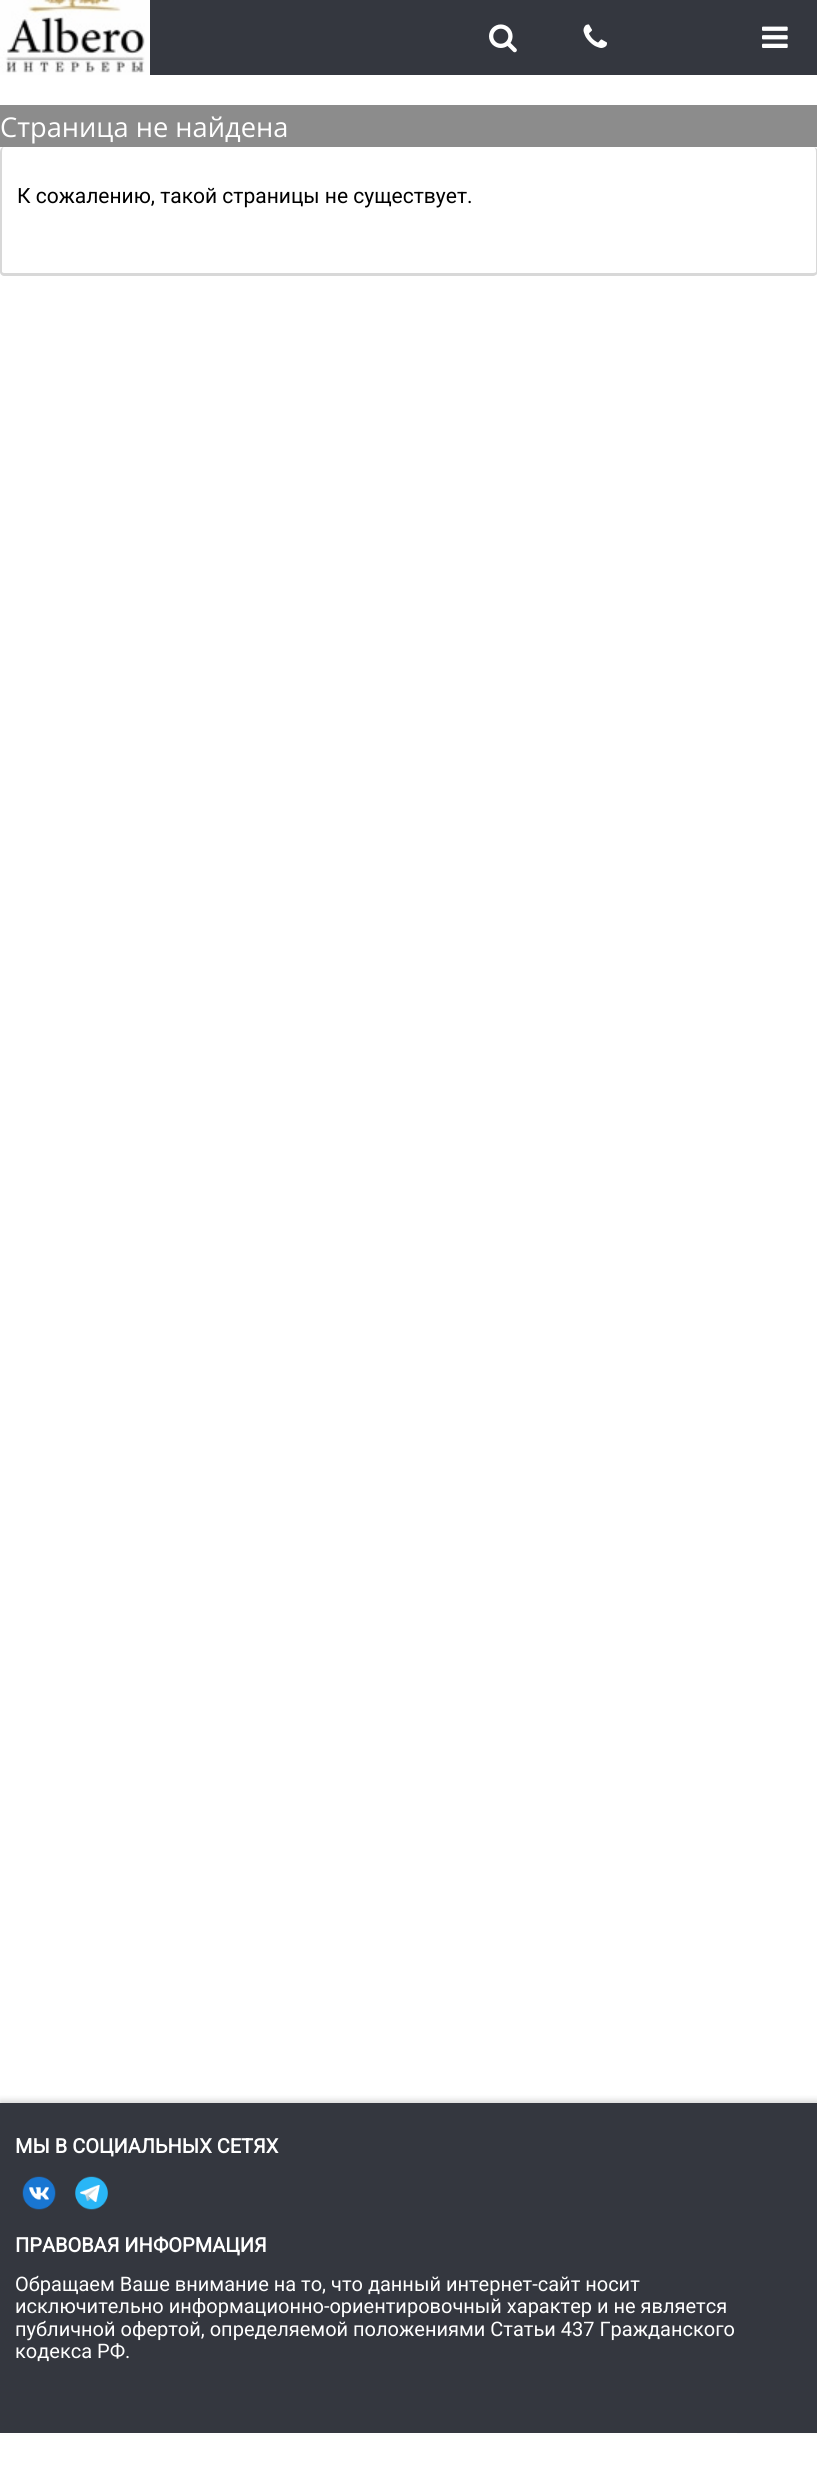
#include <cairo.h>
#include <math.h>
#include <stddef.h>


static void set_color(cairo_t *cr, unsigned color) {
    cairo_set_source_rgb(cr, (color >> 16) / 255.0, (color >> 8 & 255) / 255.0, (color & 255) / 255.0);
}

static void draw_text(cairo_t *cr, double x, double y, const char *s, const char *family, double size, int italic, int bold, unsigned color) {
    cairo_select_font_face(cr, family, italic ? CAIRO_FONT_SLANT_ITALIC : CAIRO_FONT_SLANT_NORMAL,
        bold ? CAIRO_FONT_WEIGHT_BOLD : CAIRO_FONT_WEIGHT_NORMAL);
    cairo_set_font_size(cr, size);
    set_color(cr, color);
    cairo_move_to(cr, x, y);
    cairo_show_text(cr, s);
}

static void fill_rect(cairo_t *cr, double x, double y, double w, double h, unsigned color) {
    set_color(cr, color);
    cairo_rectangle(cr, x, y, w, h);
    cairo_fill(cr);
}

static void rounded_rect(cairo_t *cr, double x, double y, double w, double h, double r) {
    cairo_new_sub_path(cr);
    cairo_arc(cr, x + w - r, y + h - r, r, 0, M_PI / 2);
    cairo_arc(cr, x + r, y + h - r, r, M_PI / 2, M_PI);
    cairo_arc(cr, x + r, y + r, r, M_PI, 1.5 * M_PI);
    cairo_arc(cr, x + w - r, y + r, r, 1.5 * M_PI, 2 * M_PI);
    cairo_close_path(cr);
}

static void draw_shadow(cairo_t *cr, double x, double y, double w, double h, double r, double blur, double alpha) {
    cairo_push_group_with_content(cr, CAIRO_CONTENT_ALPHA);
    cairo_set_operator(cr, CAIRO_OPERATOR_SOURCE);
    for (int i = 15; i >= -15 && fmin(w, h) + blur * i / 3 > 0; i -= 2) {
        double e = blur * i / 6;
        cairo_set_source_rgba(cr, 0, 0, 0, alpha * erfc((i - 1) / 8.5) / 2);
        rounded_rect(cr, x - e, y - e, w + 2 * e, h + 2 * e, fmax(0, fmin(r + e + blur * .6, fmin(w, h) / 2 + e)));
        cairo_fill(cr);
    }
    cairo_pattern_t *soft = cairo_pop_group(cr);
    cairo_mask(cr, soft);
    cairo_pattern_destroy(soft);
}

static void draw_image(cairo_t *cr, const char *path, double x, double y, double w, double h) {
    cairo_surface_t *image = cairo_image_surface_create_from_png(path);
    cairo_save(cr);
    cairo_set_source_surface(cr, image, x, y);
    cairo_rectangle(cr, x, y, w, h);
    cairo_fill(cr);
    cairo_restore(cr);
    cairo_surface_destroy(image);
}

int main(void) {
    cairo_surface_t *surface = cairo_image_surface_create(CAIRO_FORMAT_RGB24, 817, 2477);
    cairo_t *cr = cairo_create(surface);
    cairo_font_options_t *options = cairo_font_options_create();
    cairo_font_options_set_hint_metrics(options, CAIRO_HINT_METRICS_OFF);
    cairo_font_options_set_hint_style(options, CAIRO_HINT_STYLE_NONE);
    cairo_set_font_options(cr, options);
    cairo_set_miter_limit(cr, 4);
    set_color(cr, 0xFFFFFF);
    cairo_paint(cr);
    fill_rect(cr, 150, 0, 667, 75, 0x34373F);
    draw_image(cr, "assets/img1.png", 0, 0, 150, 75);
    draw_image(cr, "assets/img2.png", 489, 24, 28, 29);
    draw_image(cr, "assets/img3.png", 583, 24, 24, 24);
    draw_image(cr, "assets/img4.png", 762, 26, 26, 22);
    fill_rect(cr, 0, 105, 817, 42, 0x8C8C8C);
    draw_text(cr, 0, 137, "Страница не найдена", "Open Sans", 27.25, 0, 0, 0xFFFFFF);
    set_color(cr, 0xD8D8D8);
    cairo_set_fill_rule(cr, CAIRO_FILL_RULE_EVEN_ODD);
    cairo_new_path(cr);
    cairo_move_to(cr, 4, 147);
    cairo_line_to(cr, 813, 147);
    cairo_curve_to(cr, 815, 147, 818, 149, 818, 152);
    cairo_line_to(cr, 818, 272);
    cairo_curve_to(cr, 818, 274, 815, 276, 813, 276);
    cairo_line_to(cr, 4, 276);
    cairo_curve_to(cr, 2, 276, 0, 274, 0, 272);
    cairo_line_to(cr, 0, 152);
    cairo_curve_to(cr, 0, 149, 2, 147, 4, 147);
    cairo_close_path(cr);
    cairo_move_to(cr, 4, 147);
    cairo_line_to(cr, 813, 147);
    cairo_curve_to(cr, 815, 147, 816, 149, 816, 152);
    cairo_line_to(cr, 816, 272);
    cairo_curve_to(cr, 816, 272, 815, 273, 813, 273);
    cairo_line_to(cr, 4, 273);
    cairo_curve_to(cr, 3, 273, 2, 272, 2, 272);
    cairo_line_to(cr, 2, 152);
    cairo_curve_to(cr, 2, 149, 3, 147, 4, 147);
    cairo_close_path(cr);
    cairo_fill(cr);
    draw_text(cr, 17, 203, "К сожалению, такой страницы не существует.", "Roboto", 21, 0, 0, 0x000000);
    set_color(cr, 0x000000);
    draw_shadow(cr, 0, 2100, 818, 330, 0, 3, 0.15);
    fill_rect(cr, 0, 2103, 817, 330, 0x34373F);
    fill_rect(cr, 0, 2433, 737, 1, 0xFFFFFF);
    draw_text(cr, 15, 2153, "МЫ В СОЦИАЛЬНЫХ СЕТЯХ", "Roboto", 20, 0, 1, 0xFFFFFF);
    draw_image(cr, "assets/img5.png", 22, 2176, 34, 34);
    draw_image(cr, "assets/img6.png", 75, 2176, 33, 34);
    draw_text(cr, 15, 2252, "ПРАВОВАЯ ИНФОРМАЦИЯ", "Roboto", 20, 0, 1, 0xFFFFFF);
    draw_text(cr, 15, 2291, "Обращаем Ваше внимание на то, что данный интернет-сайт носит", "Roboto", 20, 0, 0, 0xFFFFFF);
    draw_text(cr, 15, 2313, "исключительно информационно-ориентировочный характер и не является", "Roboto", 20, 0, 0, 0xFFFFFF);
    draw_text(cr, 15, 2336, "публичной офертой, определяемой положениями Статьи 437 Гражданского", "Roboto", 20, 0, 0, 0xFFFFFF);
    draw_text(cr, 15, 2358, "кодекса РФ.", "Roboto", 20, 0, 0, 0xFFFFFF);
    cairo_surface_write_to_png(surface, "output.png");
    cairo_font_options_destroy(options);
    cairo_destroy(cr);
    cairo_surface_destroy(surface);
    return 0;
}
